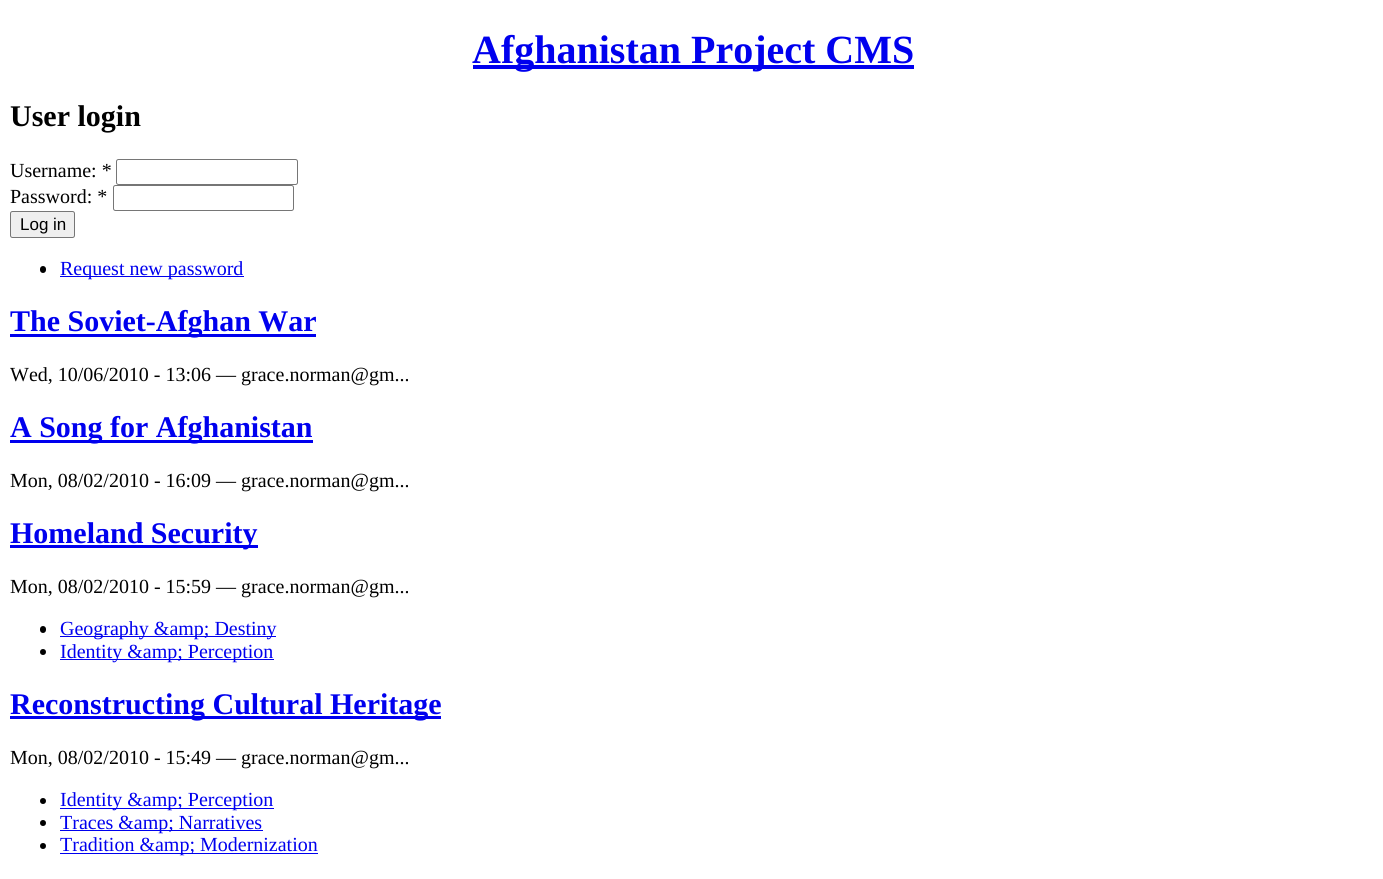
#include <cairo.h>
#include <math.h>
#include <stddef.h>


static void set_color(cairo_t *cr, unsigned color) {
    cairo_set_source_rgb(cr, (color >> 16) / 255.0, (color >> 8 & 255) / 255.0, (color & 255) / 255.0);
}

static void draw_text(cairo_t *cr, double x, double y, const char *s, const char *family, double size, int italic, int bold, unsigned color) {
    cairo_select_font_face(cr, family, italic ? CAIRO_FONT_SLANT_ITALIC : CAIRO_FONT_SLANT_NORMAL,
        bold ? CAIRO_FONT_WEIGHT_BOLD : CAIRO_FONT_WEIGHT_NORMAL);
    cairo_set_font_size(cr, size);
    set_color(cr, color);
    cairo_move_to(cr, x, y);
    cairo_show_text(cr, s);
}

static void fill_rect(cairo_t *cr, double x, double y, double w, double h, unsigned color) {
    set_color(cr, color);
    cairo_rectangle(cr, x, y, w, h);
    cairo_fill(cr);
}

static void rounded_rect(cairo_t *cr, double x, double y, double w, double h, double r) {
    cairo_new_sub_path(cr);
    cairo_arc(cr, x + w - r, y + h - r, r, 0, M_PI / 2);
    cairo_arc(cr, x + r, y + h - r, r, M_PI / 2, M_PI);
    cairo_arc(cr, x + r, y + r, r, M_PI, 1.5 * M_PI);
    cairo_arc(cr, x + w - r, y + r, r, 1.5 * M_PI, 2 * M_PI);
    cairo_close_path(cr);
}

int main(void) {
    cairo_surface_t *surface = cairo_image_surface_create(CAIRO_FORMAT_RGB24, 1383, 879);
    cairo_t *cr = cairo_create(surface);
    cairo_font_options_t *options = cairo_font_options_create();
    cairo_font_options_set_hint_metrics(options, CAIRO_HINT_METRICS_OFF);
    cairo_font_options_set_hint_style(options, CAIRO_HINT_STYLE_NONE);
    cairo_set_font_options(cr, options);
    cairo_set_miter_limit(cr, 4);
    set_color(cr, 0xFFFFFF);
    cairo_paint(cr);
    fill_rect(cr, 473, 65, 441, 4, 0x0000EE);
    draw_text(cr, 472, 63, "Afghanistan Project CMS", "Liberation Serif", 40, 0, 1, 0x0000EE);
    draw_text(cr, 10, 126, "User login", "Liberation Serif", 30, 0, 1, 0x000000);
    draw_text(cr, 10, 177, "Username: *", "Liberation Serif", 20, 0, 0, 0x000000);
    rounded_rect(cr, 116.5, 159.5, 181, 25, 2);
    set_color(cr, 0x767676);
    cairo_set_line_width(cr, 1);
    cairo_stroke(cr);
    draw_text(cr, 10, 203, "Password: *", "Liberation Serif", 20, 0, 0, 0x000000);
    rounded_rect(cr, 113.5, 185.5, 180, 25, 2);
    set_color(cr, 0x767676);
    cairo_stroke(cr);
    set_color(cr, 0xEFEFEF);
    rounded_rect(cr, 10.5, 211.5, 64, 26, 2);
    cairo_fill_preserve(cr);
    set_color(cr, 0x767676);
    cairo_stroke(cr);
    draw_text(cr, 20, 230, "Log in", "Liberation Sans", 17, 0, 0, 0x000000);
    rounded_rect(cr, 40, 266, 6, 7, 3);
    cairo_fill(cr);
    fill_rect(cr, 60, 276, 184, 1, 0x0000EE);
    draw_text(cr, 60, 275, "Request new password", "Liberation Serif", 20, 0, 0, 0x0000EE);
    fill_rect(cr, 10, 334, 306, 3, 0x0000EE);
    draw_text(cr, 10, 331, "The Soviet-Afghan War", "Liberation Serif", 30, 0, 1, 0x0000EE);
    draw_text(cr, 10, 381, "Wed, 10/06/2010 - 13:06 — grace.norman@gm...", "Liberation Serif", 20, 0, 0, 0x000000);
    fill_rect(cr, 10, 440, 303, 3, 0x0000EE);
    draw_text(cr, 10, 437, "A Song for Afghanistan", "Liberation Serif", 30, 0, 1, 0x0000EE);
    draw_text(cr, 10, 487, "Mon, 08/02/2010 - 16:09 — grace.norman@gm...", "Liberation Serif", 20, 0, 0, 0x000000);
    fill_rect(cr, 10, 545, 248, 3, 0x0000EE);
    draw_text(cr, 10, 543, "Homeland Security", "Liberation Serif", 30, 0, 1, 0x0000EE);
    draw_text(cr, 10, 593, "Mon, 08/02/2010 - 15:59 — grace.norman@gm...", "Liberation Serif", 20, 0, 0, 0x000000);
    rounded_rect(cr, 40, 626, 6, 7, 3);
    cairo_fill(cr);
    fill_rect(cr, 60, 636, 216, 1, 0x0000EE);
    draw_text(cr, 60, 635, "Geography &amp; Destiny", "Liberation Serif", 20, 0, 0, 0x0000EE);
    set_color(cr, 0x000000);
    cairo_new_path(cr);
    cairo_arc(cr, 43, 652, 3, 0, 2 * M_PI);
    cairo_fill(cr);
    fill_rect(cr, 60, 659, 214, 1, 0x0000EE);
    draw_text(cr, 60, 658, "Identity &amp; Perception", "Liberation Serif", 20, 0, 0, 0x0000EE);
    fill_rect(cr, 10, 716, 431, 3, 0x0000EE);
    draw_text(cr, 10, 714, "Reconstructing Cultural Heritage", "Liberation Serif", 30, 0, 1, 0x0000EE);
    draw_text(cr, 10, 764, "Mon, 08/02/2010 - 15:49 — grace.norman@gm...", "Liberation Serif", 20, 0, 0, 0x000000);
    cairo_new_path(cr);
    cairo_arc(cr, 43, 801, 3, 0, 2 * M_PI);
    cairo_fill(cr);
    fill_rect(cr, 60, 808, 214, 1, 0x0000EE);
    draw_text(cr, 60, 806, "Identity &amp; Perception", "Liberation Serif", 20, 0, 0, 0x0000EE);
    set_color(cr, 0x000000);
    cairo_new_path(cr);
    cairo_arc(cr, 43, 823, 3, 0, 2 * M_PI);
    cairo_fill(cr);
    fill_rect(cr, 60, 830, 203, 1, 0x0000EE);
    draw_text(cr, 60, 829, "Traces &amp; Narratives", "Liberation Serif", 20, 0, 0, 0x0000EE);
    set_color(cr, 0x000000);
    cairo_new_path(cr);
    cairo_arc(cr, 43, 846, 3, 0, 2 * M_PI);
    cairo_fill(cr);
    fill_rect(cr, 60, 853, 258, 1, 0x0000EE);
    draw_text(cr, 60, 851, "Tradition &amp; Modernization", "Liberation Serif", 20, 0, 0, 0x0000EE);
    cairo_surface_write_to_png(surface, "output.png");
    cairo_font_options_destroy(options);
    cairo_destroy(cr);
    cairo_surface_destroy(surface);
    return 0;
}
